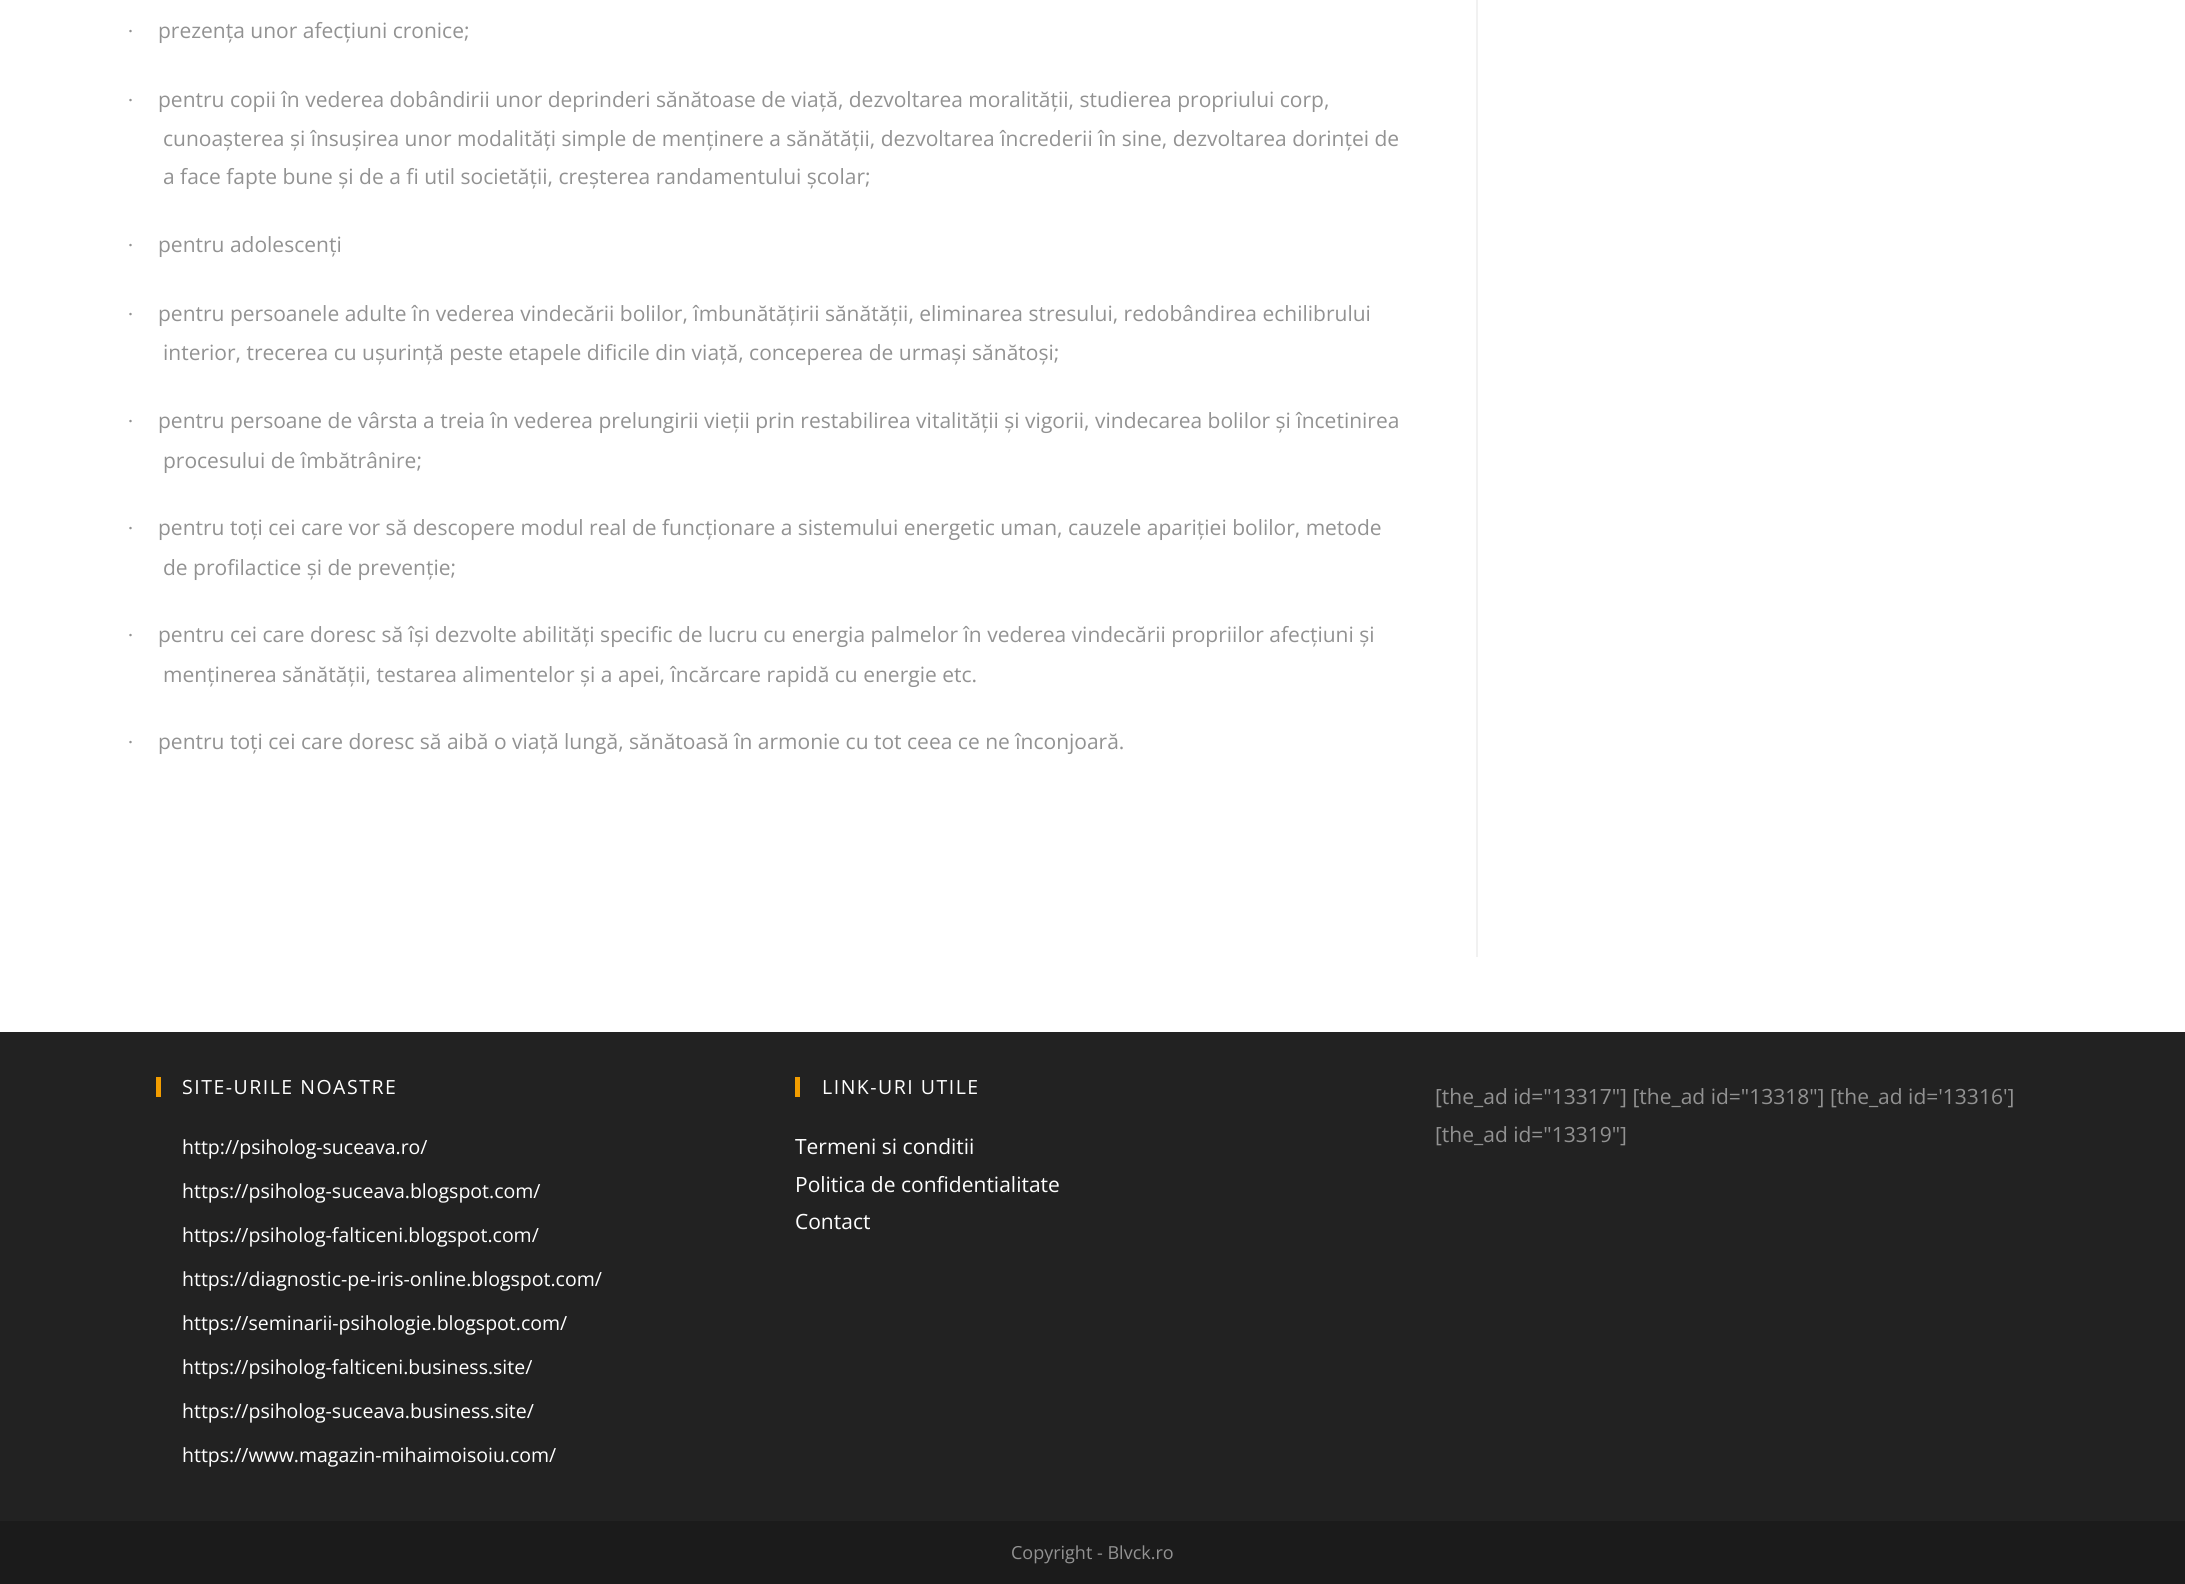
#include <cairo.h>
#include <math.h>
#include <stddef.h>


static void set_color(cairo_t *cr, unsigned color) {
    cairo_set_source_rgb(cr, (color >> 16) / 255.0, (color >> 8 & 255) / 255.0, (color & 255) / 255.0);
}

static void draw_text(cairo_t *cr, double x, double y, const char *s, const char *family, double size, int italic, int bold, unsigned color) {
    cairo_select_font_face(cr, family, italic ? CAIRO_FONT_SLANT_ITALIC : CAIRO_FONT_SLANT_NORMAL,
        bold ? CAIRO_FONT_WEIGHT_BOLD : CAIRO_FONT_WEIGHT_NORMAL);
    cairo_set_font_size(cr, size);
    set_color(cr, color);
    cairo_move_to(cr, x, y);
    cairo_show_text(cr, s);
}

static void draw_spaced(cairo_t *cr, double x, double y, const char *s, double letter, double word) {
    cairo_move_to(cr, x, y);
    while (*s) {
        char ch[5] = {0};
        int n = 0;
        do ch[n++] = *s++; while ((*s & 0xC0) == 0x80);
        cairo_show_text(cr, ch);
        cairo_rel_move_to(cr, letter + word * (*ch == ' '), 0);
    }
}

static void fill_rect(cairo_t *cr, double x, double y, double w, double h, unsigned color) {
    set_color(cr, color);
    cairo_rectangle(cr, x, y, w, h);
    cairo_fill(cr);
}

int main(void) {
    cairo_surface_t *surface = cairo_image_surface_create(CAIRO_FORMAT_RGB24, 2185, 1584);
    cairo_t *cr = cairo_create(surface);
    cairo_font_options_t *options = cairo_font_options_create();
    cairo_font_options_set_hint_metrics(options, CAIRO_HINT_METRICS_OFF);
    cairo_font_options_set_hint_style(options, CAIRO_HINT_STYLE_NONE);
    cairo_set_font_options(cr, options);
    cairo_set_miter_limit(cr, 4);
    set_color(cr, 0xFFFFFF);
    cairo_paint(cr);
    fill_rect(cr, 1476, 0, 2, 957, 0xF1F1F1);
    draw_text(cr, 127, 38, "·", "Liberation Serif", 21, 0, 0, 0x929292);
    draw_text(cr, 158, 38, "prezența unor afecțiuni cronice;", "Open Sans", 21, 0, 0, 0x929292);
    draw_text(cr, 127, 107, "·", "Liberation Serif", 21, 0, 0, 0x929292);
    draw_text(cr, 158, 107, "pentru copii în vederea dobândirii unor deprinderi sănătoase de viață, dezvoltarea moralității, studierea propriului corp,", "Open Sans", 21, 0, 0, 0x929292);
    draw_text(cr, 163, 146, "cunoașterea și însușirea unor modalități simple de menținere a sănătății, dezvoltarea încrederii în sine, dezvoltarea dorinței de", "Open Sans", 21, 0, 0, 0x929292);
    draw_text(cr, 163, 184, "a face fapte bune și de a fi util societății, creșterea randamentului școlar;", "Open Sans", 21, 0, 0, 0x929292);
    draw_text(cr, 127, 252, "·", "Liberation Serif", 21, 0, 0, 0x929292);
    draw_text(cr, 158, 252, "pentru adolescenți", "Open Sans", 21, 0, 0, 0x929292);
    draw_text(cr, 127, 321, "·", "Liberation Serif", 21, 0, 0, 0x929292);
    draw_text(cr, 158, 321, "pentru persoanele adulte în vederea vindecării bolilor, îmbunătățirii sănătății, eliminarea stresului, redobândirea echilibrului", "Open Sans", 21, 0, 0, 0x929292);
    draw_text(cr, 163, 360, "interior, trecerea cu ușurință peste etapele dificile din viață, conceperea de urmași sănătoși;", "Open Sans", 21, 0, 0, 0x929292);
    draw_text(cr, 127, 428, "·", "Liberation Serif", 21, 0, 0, 0x929292);
    draw_text(cr, 158, 428, "pentru persoane de vârsta a treia în vederea prelungirii vieții prin restabilirea vitalității și vigorii, vindecarea bolilor și încetinirea", "Open Sans", 21, 0, 0, 0x929292);
    draw_text(cr, 163, 468, "procesului de îmbătrânire;", "Open Sans", 21, 0, 0, 0x929292);
    draw_text(cr, 127, 535, "·", "Liberation Serif", 21, 0, 0, 0x929292);
    draw_text(cr, 158, 535, "pentru toți cei care vor să descopere modul real de funcționare a sistemului energetic uman, cauzele apariției bolilor, metode", "Open Sans", 21, 0, 0, 0x929292);
    draw_text(cr, 163, 575, "de profilactice și de prevenție;", "Open Sans", 21, 0, 0, 0x929292);
    draw_text(cr, 127, 642, "·", "Liberation Serif", 21, 0, 0, 0x929292);
    draw_text(cr, 158, 642, "pentru cei care doresc să își dezvolte abilități specific de lucru cu energia palmelor în vederea vindecării propriilor afecțiuni și", "Open Sans", 21, 0, 0, 0x929292);
    draw_text(cr, 163, 682, "menținerea sănătății, testarea alimentelor și a apei, încărcare rapidă cu energie etc.", "Open Sans", 21, 0, 0, 0x929292);
    draw_text(cr, 127, 749, "·", "Liberation Serif", 21, 0, 0, 0x929292);
    draw_text(cr, 158, 749, "pentru toți cei care doresc să aibă o viață lungă, sănătoasă în armonie cu tot ceea ce ne înconjoară.", "Open Sans", 21, 0, 0, 0x929292);
    fill_rect(cr, 0, 1032, 2185, 489, 0x222222);
    fill_rect(cr, 156, 1077, 5, 20, 0xF29D00);
    cairo_set_font_size(cr, 19.5);
    set_color(cr, 0xFFFFFF);
    draw_spaced(cr, 182, 1094, "SITE-URILE NOASTRE", 1.5, 0);
    draw_text(cr, 182, 1154, "http://psiholog-suceava.ro/", "Open Sans", 19.5, 0, 0, 0xFFFFFF);
    draw_text(cr, 182, 1198, "https://psiholog-suceava.blogspot.com/", "Open Sans", 19.5, 0, 0, 0xFFFFFF);
    draw_text(cr, 182, 1242, "https://psiholog-falticeni.blogspot.com/", "Open Sans", 19.5, 0, 0, 0xFFFFFF);
    draw_text(cr, 182, 1286, "https://diagnostic-pe-iris-online.blogspot.com/", "Open Sans", 19.5, 0, 0, 0xFFFFFF);
    draw_text(cr, 182, 1330, "https://seminarii-psihologie.blogspot.com/", "Open Sans", 19.5, 0, 0, 0xFFFFFF);
    draw_text(cr, 182, 1374, "https://psiholog-falticeni.business.site/", "Open Sans", 19.5, 0, 0, 0xFFFFFF);
    draw_text(cr, 182, 1418, "https://psiholog-suceava.business.site/", "Open Sans", 19.5, 0, 0, 0xFFFFFF);
    draw_text(cr, 182, 1462, "https://www.magazin-mihaimoisoiu.com/", "Open Sans", 19.5, 0, 0, 0xFFFFFF);
    fill_rect(cr, 795, 1077, 5, 20, 0xF29D00);
    set_color(cr, 0xFFFFFF);
    draw_spaced(cr, 822, 1094, "LINK-URI UTILE", 1.5, 0);
    draw_text(cr, 795, 1154, "Termeni si conditii", "Open Sans", 21, 0, 0, 0xFFFFFF);
    draw_text(cr, 795, 1192, "Politica de confidentialitate", "Open Sans", 21, 0, 0, 0xFFFFFF);
    draw_text(cr, 795, 1229, "Contact", "Open Sans", 21, 0, 0, 0xFFFFFF);
    draw_text(cr, 1435, 1104, "[the_ad id=\"13317\"] [the_ad id=\"13318\"] [the_ad id='13316']", "Open Sans", 21, 0, 0, 0x929292);
    draw_text(cr, 1435, 1142, "[the_ad id=\"13319\"]", "Open Sans", 21, 0, 0, 0x929292);
    fill_rect(cr, 0, 1521, 2185, 63, 0x1B1B1B);
    draw_text(cr, 1011, 1559, "Copyright - Blvck.ro", "Open Sans", 18, 0, 0, 0x929292);
    cairo_surface_write_to_png(surface, "output.png");
    cairo_font_options_destroy(options);
    cairo_destroy(cr);
    cairo_surface_destroy(surface);
    return 0;
}
